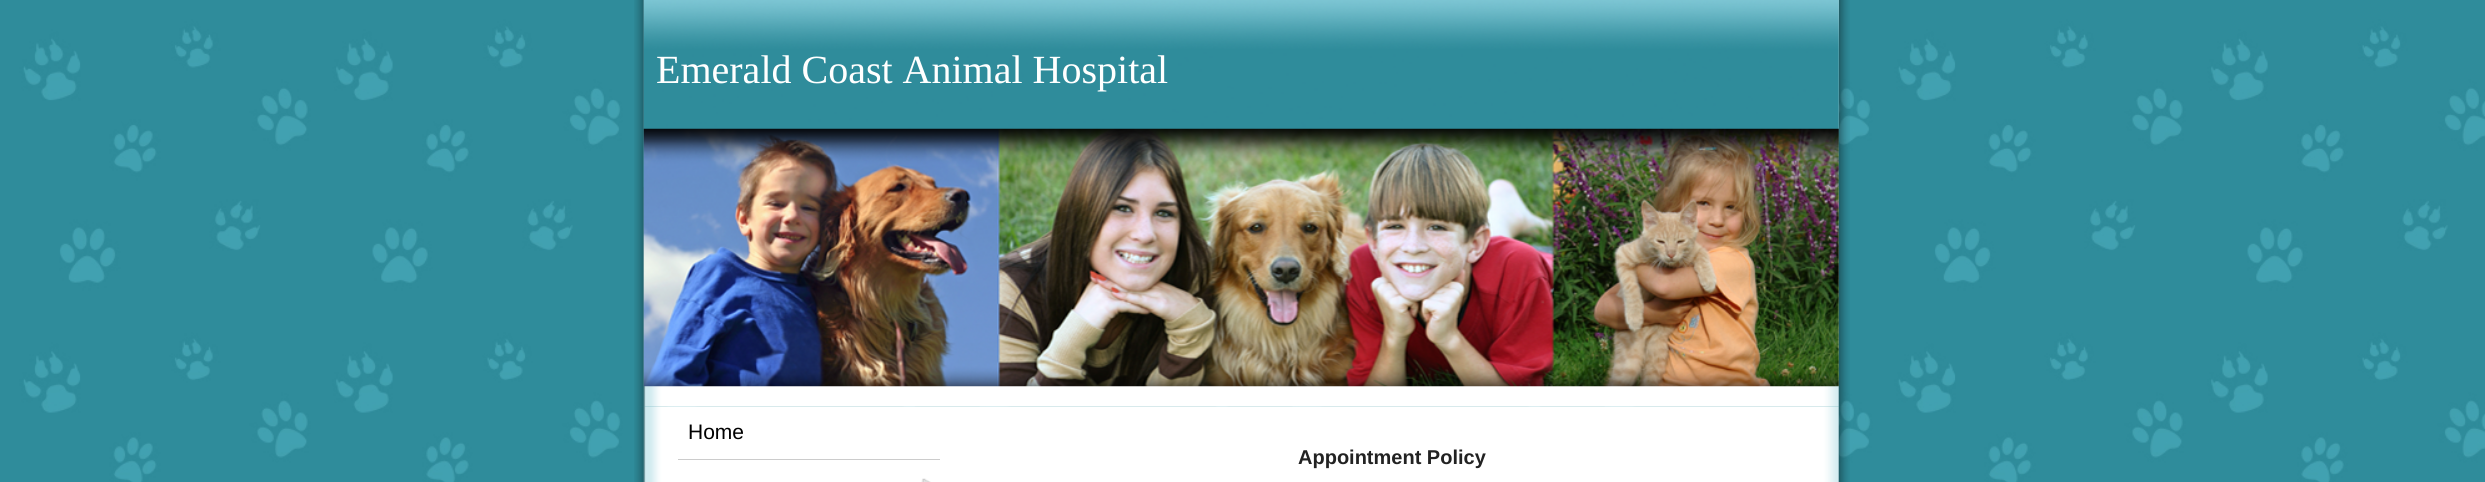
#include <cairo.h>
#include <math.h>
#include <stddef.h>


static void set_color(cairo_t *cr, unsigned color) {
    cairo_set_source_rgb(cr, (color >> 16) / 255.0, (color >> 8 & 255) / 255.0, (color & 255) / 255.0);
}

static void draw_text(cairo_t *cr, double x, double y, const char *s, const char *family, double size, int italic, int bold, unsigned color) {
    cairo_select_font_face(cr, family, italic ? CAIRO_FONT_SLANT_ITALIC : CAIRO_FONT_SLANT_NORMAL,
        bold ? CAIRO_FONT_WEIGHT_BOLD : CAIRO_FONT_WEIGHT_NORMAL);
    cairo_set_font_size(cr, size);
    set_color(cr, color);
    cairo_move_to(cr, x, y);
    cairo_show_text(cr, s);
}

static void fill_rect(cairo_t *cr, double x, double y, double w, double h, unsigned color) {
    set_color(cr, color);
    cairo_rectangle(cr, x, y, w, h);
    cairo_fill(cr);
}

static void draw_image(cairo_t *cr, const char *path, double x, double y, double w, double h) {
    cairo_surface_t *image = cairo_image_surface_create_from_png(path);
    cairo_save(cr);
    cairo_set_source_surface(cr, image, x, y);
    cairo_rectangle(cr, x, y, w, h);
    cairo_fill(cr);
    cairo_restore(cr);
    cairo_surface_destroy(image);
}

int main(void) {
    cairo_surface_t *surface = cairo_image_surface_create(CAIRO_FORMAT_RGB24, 2485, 482);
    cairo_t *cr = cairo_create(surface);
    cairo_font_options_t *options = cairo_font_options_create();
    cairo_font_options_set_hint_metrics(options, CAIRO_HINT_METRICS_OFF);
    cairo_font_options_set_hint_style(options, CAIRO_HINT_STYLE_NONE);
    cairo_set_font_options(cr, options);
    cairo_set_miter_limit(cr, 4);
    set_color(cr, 0xFFFFFF);
    cairo_paint(cr);
    draw_image(cr, "assets/img1.png", 0, 0, 2485, 482);
    draw_image(cr, "assets/img2.png", 634, 0, 1216, 407);
    draw_image(cr, "assets/img3.png", 643, 0, 1196, 187);
    draw_text(cr, 656, 83, "Emerald Coast Animal Hospital", "Liberation Serif", 40, 0, 0, 0xFFFFFF);
    draw_image(cr, "assets/img4.png", 643, 128, 1196, 259);
    draw_image(cr, "assets/img5.png", 634, 406, 1216, 76);
    fill_rect(cr, 678, 459, 262, 1, 0xCCCCCC);
    draw_text(cr, 688, 439, "Home", "Liberation Sans", 21, 0, 0, 0x000000);
    draw_image(cr, "assets/img6.png", 921, 478, 10, 4);
    draw_text(cr, 1298, 464, "Appointment Policy", "Liberation Sans", 20, 0, 1, 0x222222);
    cairo_surface_write_to_png(surface, "output.png");
    cairo_font_options_destroy(options);
    cairo_destroy(cr);
    cairo_surface_destroy(surface);
    return 0;
}
